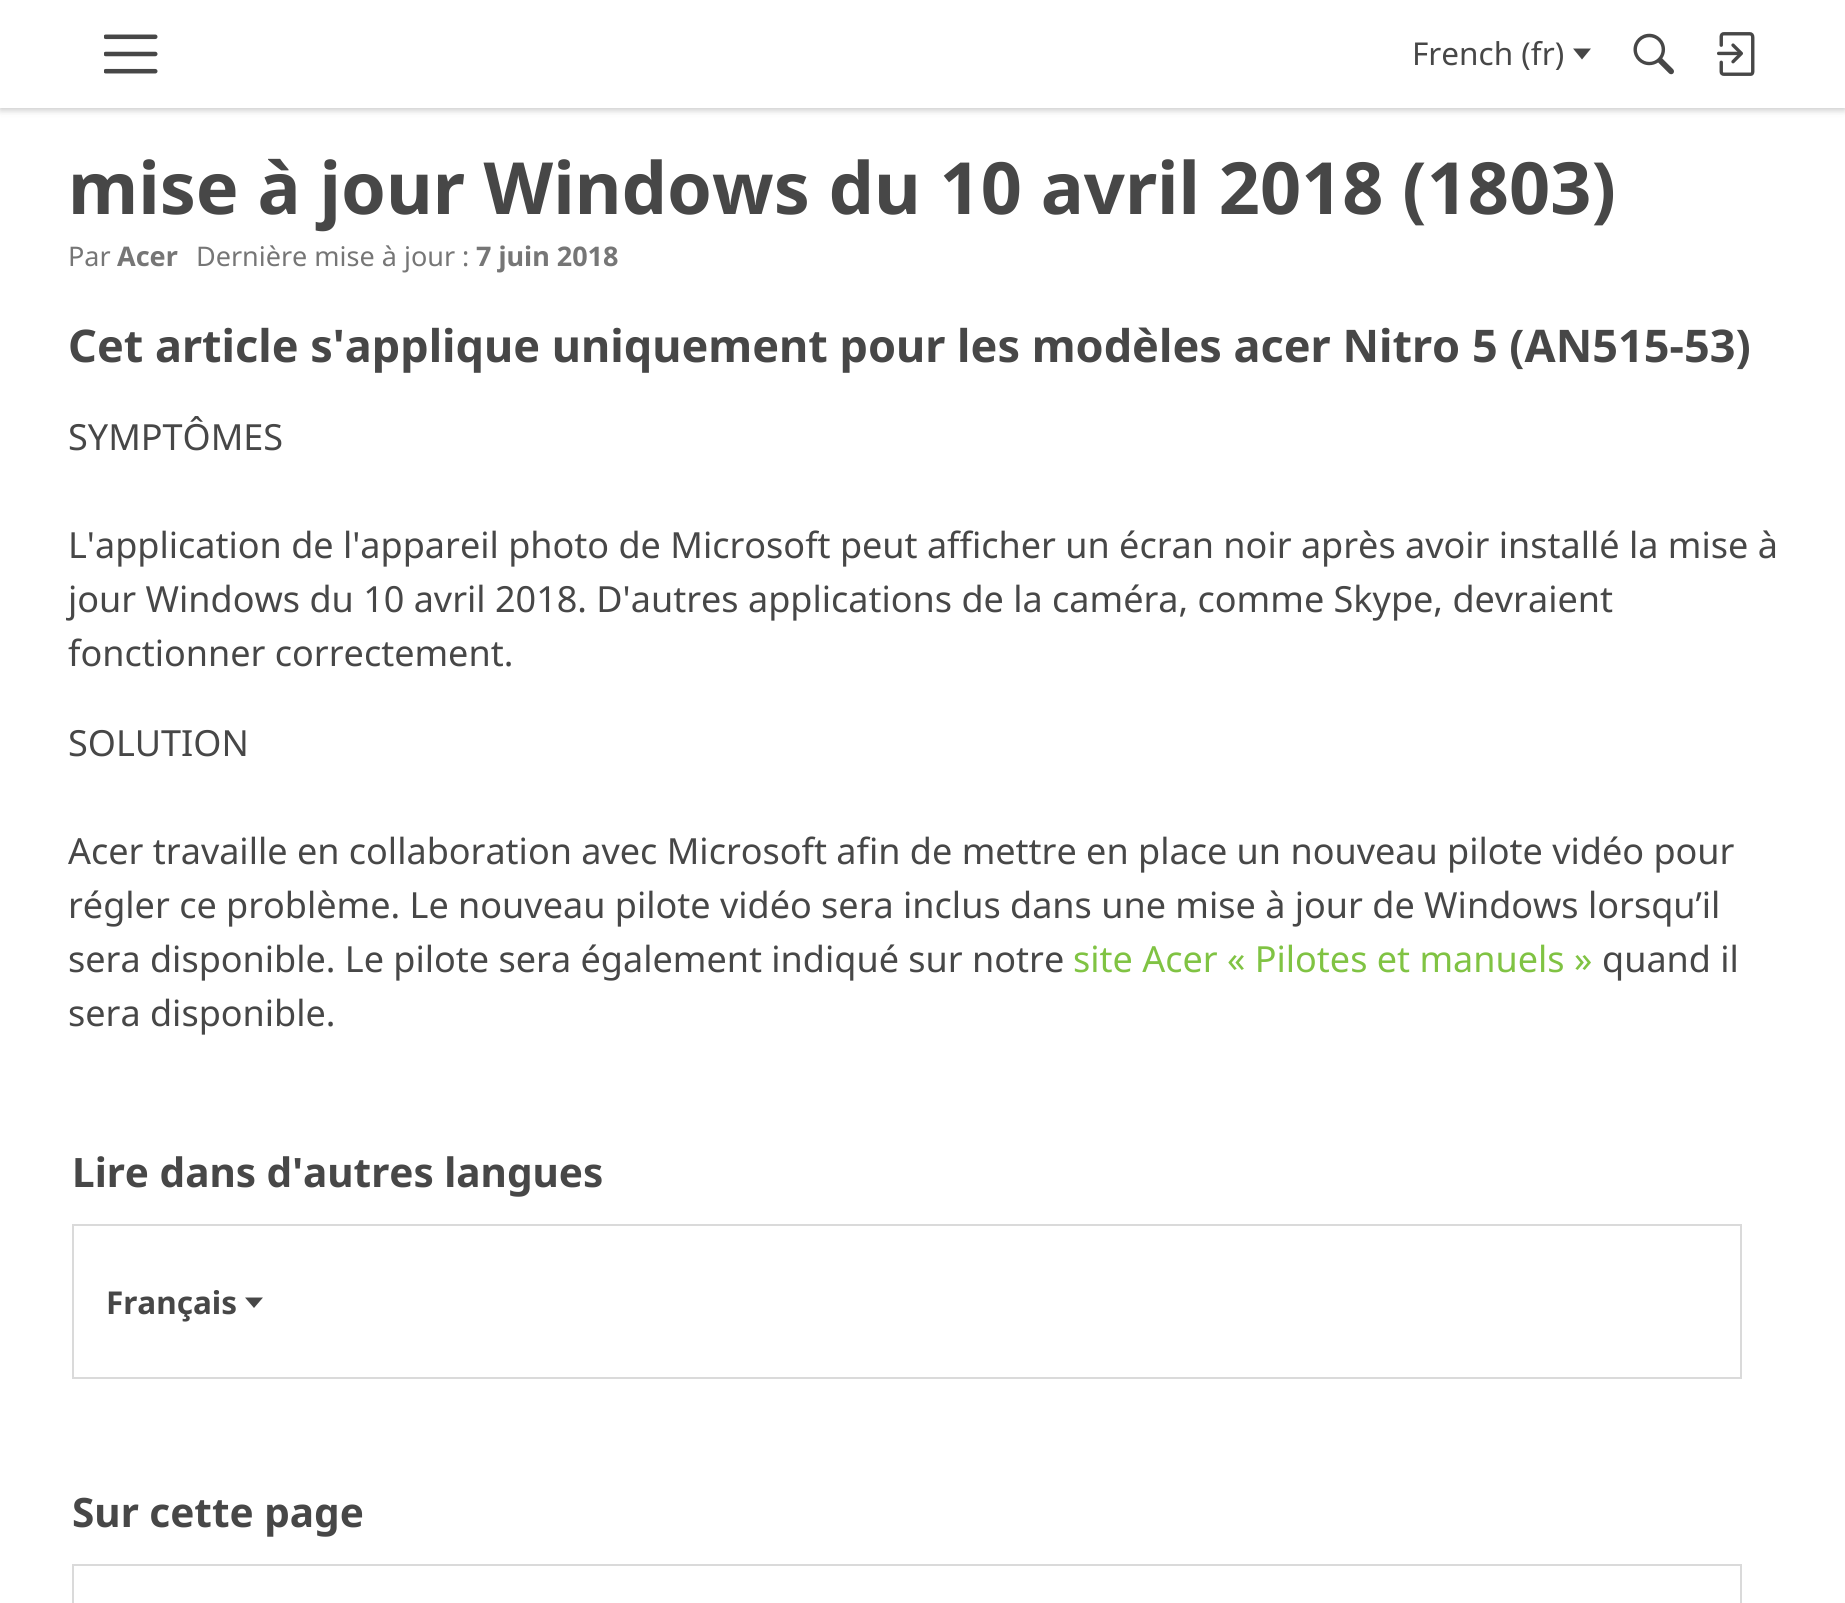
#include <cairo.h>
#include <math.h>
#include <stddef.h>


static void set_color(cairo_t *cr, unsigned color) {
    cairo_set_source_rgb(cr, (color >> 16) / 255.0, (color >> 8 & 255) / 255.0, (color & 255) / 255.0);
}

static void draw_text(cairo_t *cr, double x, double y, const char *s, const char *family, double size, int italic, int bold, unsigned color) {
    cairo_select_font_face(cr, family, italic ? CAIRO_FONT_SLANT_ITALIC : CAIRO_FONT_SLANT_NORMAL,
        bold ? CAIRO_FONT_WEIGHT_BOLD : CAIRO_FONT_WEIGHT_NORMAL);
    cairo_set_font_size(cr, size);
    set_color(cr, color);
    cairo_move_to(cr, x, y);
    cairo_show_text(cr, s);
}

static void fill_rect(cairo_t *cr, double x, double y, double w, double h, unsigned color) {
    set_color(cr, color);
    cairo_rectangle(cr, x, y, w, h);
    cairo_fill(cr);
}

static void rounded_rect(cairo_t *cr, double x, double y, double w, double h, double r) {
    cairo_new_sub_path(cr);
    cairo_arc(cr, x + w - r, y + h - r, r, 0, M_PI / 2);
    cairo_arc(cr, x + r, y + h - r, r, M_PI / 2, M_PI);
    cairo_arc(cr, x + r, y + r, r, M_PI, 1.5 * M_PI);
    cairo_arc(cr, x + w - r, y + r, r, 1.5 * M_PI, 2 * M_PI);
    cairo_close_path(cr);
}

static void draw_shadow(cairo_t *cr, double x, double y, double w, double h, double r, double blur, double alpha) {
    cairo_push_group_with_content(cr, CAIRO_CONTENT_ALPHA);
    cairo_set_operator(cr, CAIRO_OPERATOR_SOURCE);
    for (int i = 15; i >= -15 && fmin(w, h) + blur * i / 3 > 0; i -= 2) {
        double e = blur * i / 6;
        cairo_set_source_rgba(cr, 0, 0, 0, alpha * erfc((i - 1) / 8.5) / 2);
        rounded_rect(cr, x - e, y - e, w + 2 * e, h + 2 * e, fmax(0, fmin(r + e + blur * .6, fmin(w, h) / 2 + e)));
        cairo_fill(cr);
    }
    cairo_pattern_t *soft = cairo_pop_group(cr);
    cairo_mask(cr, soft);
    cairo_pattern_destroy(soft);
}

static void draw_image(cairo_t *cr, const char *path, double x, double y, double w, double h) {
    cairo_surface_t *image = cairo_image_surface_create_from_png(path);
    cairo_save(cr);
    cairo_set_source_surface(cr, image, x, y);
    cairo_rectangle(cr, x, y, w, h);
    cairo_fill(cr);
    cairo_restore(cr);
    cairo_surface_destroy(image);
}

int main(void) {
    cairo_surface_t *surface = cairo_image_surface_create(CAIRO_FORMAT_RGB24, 1845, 1603);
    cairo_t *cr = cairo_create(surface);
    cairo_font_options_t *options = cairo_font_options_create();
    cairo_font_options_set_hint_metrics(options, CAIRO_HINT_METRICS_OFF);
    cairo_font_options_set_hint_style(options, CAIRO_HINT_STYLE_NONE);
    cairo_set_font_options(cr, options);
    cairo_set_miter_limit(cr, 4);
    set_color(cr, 0xFFFFFF);
    cairo_paint(cr);
    set_color(cr, 0x000000);
    draw_shadow(cr, 0, 2, 1845, 108, 0, 3.5, 0.22);
    fill_rect(cr, 0, 0, 1845, 108, 0xFFFFFF);
    draw_image(cr, "assets/img1.png", 104, 34, 54, 40);
    draw_text(cr, 1412, 65, "French (fr)", "Noto Sans", 31.5, 0, 0, 0x474747);
    cairo_new_path(cr);
    cairo_move_to(cr, 1573, 48.5);
    cairo_line_to(cr, 1591, 48.5);
    cairo_line_to(cr, 1582, 59.5);
    cairo_close_path(cr);
    cairo_fill(cr);
    draw_image(cr, "assets/img2.png", 1633, 33, 41, 42);
    draw_image(cr, "assets/img3.png", 1717, 32, 38, 44);
    draw_text(cr, 68, 214, "mise à jour Windows du 10 avril 2018 (1803)", "Noto Sans", 72, 0, 1, 0x474747);
    draw_text(cr, 68, 266, "Par", "Noto Sans", 27, 0, 0, 0x767676);
    draw_text(cr, 117, 266, "Acer", "Noto Sans", 27, 0, 1, 0x767676);
    draw_text(cr, 196, 266, "Dernière mise à jour :", "Noto Sans", 27, 0, 0, 0x767676);
    draw_text(cr, 476, 266, "7 juin 2018", "Noto Sans", 27, 0, 1, 0x767676);
    draw_text(cr, 68, 362, "Cet article s'applique uniquement pour les modèles acer Nitro 5 (AN515-53)", "Noto Sans", 45, 0, 1, 0x474747);
    draw_text(cr, 68, 450, "SYMPTÔMES", "Noto Sans", 36, 0, 0, 0x474747);
    draw_text(cr, 68, 558, "L'application de l'appareil photo de Microsoft peut afficher un écran noir après avoir installé la mise à", "Noto Sans", 36, 0, 0, 0x474747);
    draw_text(cr, 68, 612, "jour Windows du 10 avril 2018. D'autres applications de la caméra, comme Skype, devraient", "Noto Sans", 36, 0, 0, 0x474747);
    draw_text(cr, 68, 666, "fonctionner correctement.", "Noto Sans", 36, 0, 0, 0x474747);
    draw_text(cr, 68, 756, "SOLUTION", "Noto Sans", 36, 0, 0, 0x474747);
    draw_text(cr, 68, 864, "Acer travaille en collaboration avec Microsoft afin de mettre en place un nouveau pilote vidéo pour", "Noto Sans", 36, 0, 0, 0x474747);
    draw_text(cr, 68, 918, "régler ce problème. Le nouveau pilote vidéo sera inclus dans une mise à jour de Windows lorsqu’il", "Noto Sans", 36, 0, 0, 0x474747);
    draw_text(cr, 68, 972, "sera disponible. Le pilote sera également indiqué sur notre", "Noto Sans", 36, 0, 0, 0x474747);
    draw_text(cr, 1073, 972, "site Acer « Pilotes et manuels »", "Noto Sans", 36, 0, 0, 0x80C343);
    draw_text(cr, 1602, 972, "quand il", "Noto Sans", 36, 0, 0, 0x474747);
    draw_text(cr, 68, 1026, "sera disponible.", "Noto Sans", 36, 0, 0, 0x474747);
    draw_text(cr, 72, 1187, "Lire dans d'autres langues", "Noto Sans", 40.5, 0, 1, 0x474747);
    cairo_rectangle(cr, 73, 1225, 1668, 153);
    set_color(cr, 0xDADADA);
    cairo_stroke(cr);
    draw_text(cr, 106, 1314, "Français", "Noto Sans", 31.5, 0, 1, 0x474747);
    cairo_new_path(cr);
    cairo_move_to(cr, 245, 1297.5);
    cairo_line_to(cr, 263, 1297.5);
    cairo_line_to(cr, 254, 1308);
    cairo_close_path(cr);
    cairo_fill(cr);
    draw_text(cr, 72, 1527, "Sur cette page", "Noto Sans", 40.5, 0, 1, 0x474747);
    cairo_rectangle(cr, 73, 1565, 1668, 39);
    set_color(cr, 0xDADADA);
    cairo_stroke(cr);
    cairo_surface_write_to_png(surface, "output.png");
    cairo_font_options_destroy(options);
    cairo_destroy(cr);
    cairo_surface_destroy(surface);
    return 0;
}
